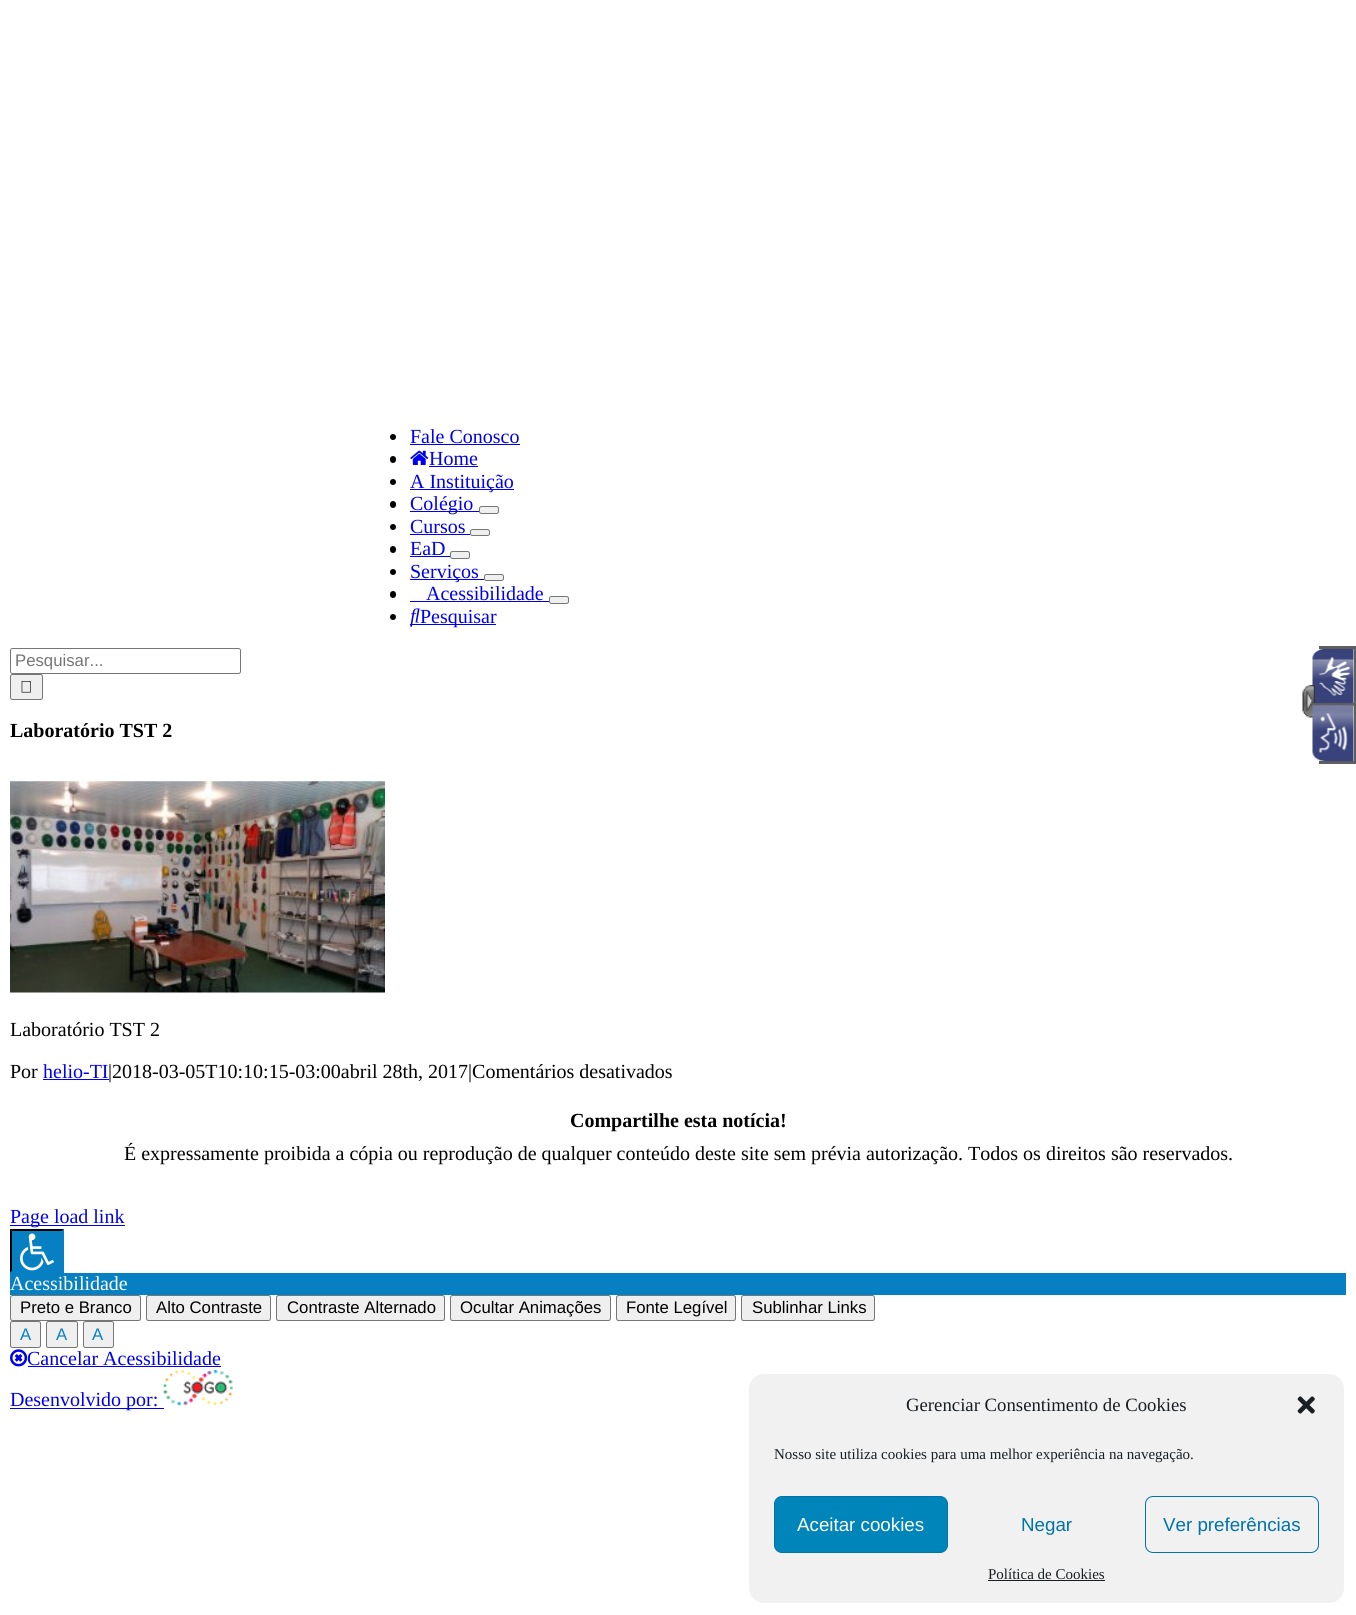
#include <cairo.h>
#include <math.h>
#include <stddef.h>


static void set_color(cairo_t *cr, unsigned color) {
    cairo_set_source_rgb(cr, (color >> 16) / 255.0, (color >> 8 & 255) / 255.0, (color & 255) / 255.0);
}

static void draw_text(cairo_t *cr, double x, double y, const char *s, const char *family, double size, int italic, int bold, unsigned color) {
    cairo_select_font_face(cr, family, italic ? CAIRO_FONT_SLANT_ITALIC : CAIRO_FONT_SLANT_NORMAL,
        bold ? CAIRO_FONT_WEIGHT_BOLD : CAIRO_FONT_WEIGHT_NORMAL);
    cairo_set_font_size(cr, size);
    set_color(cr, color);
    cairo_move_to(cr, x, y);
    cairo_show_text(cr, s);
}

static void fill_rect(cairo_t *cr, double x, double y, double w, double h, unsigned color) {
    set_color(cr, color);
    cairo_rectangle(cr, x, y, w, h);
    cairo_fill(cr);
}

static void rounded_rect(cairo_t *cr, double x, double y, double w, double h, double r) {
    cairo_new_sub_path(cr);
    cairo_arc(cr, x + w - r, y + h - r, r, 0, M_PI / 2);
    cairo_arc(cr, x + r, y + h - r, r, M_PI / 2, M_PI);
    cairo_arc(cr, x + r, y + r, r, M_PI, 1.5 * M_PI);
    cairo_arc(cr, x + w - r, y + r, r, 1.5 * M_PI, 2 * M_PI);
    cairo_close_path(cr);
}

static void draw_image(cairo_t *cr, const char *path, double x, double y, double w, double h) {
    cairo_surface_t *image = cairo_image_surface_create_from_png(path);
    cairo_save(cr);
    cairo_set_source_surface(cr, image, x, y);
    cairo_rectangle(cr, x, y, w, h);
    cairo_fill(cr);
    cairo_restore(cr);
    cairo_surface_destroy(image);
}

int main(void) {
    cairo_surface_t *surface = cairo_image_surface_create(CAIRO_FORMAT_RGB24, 1356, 1615);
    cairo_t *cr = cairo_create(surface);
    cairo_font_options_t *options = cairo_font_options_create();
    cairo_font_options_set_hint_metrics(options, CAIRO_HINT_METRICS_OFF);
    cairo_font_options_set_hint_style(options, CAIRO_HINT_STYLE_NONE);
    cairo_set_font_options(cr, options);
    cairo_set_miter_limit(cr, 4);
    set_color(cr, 0xFFFFFF);
    cairo_paint(cr);
    set_color(cr, 0x000000);
    cairo_arc(cr, 393, 437, 3, 0, 2 * M_PI);
    cairo_fill(cr);
    draw_text(cr, 410, 443, "Fale Conosco", "Liberation Serif", 20, 0, 0, 0x0000EE);
    fill_rect(cr, 410, 444, 110, 1, 0x0000EE);
    set_color(cr, 0x000000);
    rounded_rect(cr, 390, 456, 6, 7, 3);
    cairo_fill(cr);
    draw_image(cr, "assets/img1.png", 410, 450, 19, 15);
    draw_text(cr, 429, 465, "Home", "Liberation Serif", 20, 0, 0, 0x0000EE);
    fill_rect(cr, 429, 466, 49, 1, 0x0000EE);
    set_color(cr, 0x000000);
    cairo_new_path(cr);
    cairo_arc(cr, 393, 482, 3, 0, 2 * M_PI);
    cairo_fill(cr);
    fill_rect(cr, 410, 489, 104, 1, 0x0000EE);
    draw_text(cr, 410, 488, "A Instituição", "Liberation Serif", 20, 0, 0, 0x0000EE);
    set_color(cr, 0x000000);
    rounded_rect(cr, 390, 501, 6, 7, 3);
    cairo_fill(cr);
    fill_rect(cr, 410, 511, 69, 1, 0x0000EE);
    draw_text(cr, 410, 510, "Colégio", "Liberation Serif", 20, 0, 0, 0x0000EE);
    set_color(cr, 0xEFEFEF);
    rounded_rect(cr, 479.5, 506.5, 19, 7, 2);
    cairo_fill_preserve(cr);
    set_color(cr, 0x767676);
    cairo_set_line_width(cr, 1);
    cairo_stroke(cr);
    set_color(cr, 0x000000);
    cairo_arc(cr, 393, 527, 3, 0, 2 * M_PI);
    cairo_fill(cr);
    draw_text(cr, 410, 533, "Cursos", "Liberation Serif", 20, 0, 0, 0x0000EE);
    fill_rect(cr, 410, 534, 60, 1, 0x0000EE);
    set_color(cr, 0xEFEFEF);
    rounded_rect(cr, 470.5, 529.5, 19, 6, 2);
    cairo_fill_preserve(cr);
    set_color(cr, 0x767676);
    cairo_stroke(cr);
    set_color(cr, 0x000000);
    rounded_rect(cr, 390, 546, 6, 7, 3);
    cairo_fill(cr);
    draw_text(cr, 410, 555, "EaD", "Liberation Serif", 20, 0, 0, 0x0000EE);
    fill_rect(cr, 410, 556, 40, 1, 0x0000EE);
    set_color(cr, 0xEFEFEF);
    rounded_rect(cr, 450.5, 551.5, 19, 7, 2);
    cairo_fill_preserve(cr);
    set_color(cr, 0x767676);
    cairo_stroke(cr);
    set_color(cr, 0x000000);
    cairo_arc(cr, 393, 572, 3, 0, 2 * M_PI);
    cairo_fill(cr);
    fill_rect(cr, 410, 579, 74, 1, 0x0000EE);
    draw_text(cr, 410, 578, "Serviços", "Liberation Serif", 20, 0, 0, 0x0000EE);
    set_color(cr, 0xEFEFEF);
    rounded_rect(cr, 484.5, 574.5, 19, 6, 2);
    cairo_fill_preserve(cr);
    set_color(cr, 0x767676);
    cairo_stroke(cr);
    set_color(cr, 0x000000);
    rounded_rect(cr, 390, 591, 6, 7, 3);
    cairo_fill(cr);
    draw_text(cr, 426, 600, "Acessibilidade", "Liberation Serif", 20, 0, 0, 0x0000EE);
    fill_rect(cr, 410, 601, 139, 1, 0x0000EE);
    set_color(cr, 0xEFEFEF);
    rounded_rect(cr, 549.5, 596.5, 19, 7, 2);
    cairo_fill_preserve(cr);
    set_color(cr, 0x767676);
    cairo_stroke(cr);
    set_color(cr, 0x000000);
    cairo_arc(cr, 393, 617, 3, 0, 2 * M_PI);
    cairo_fill(cr);
    fill_rect(cr, 410, 624, 86, 1, 0x0000EE);
    draw_image(cr, "assets/img2.png", 410, 608, 10, 19);
    draw_text(cr, 420, 623, "Pesquisar", "Liberation Serif", 20, 0, 0, 0x0000EE);
    rounded_rect(cr, 10.5, 648.5, 230, 25, 2);
    set_color(cr, 0x767676);
    cairo_stroke(cr);
    draw_text(cr, 15, 666, "Pesquisar...", "Liberation Sans", 16.75, 0, 0, 0x757575);
    set_color(cr, 0xEFEFEF);
    rounded_rect(cr, 10.5, 674.5, 32, 25, 2);
    cairo_fill_preserve(cr);
    set_color(cr, 0x767676);
    cairo_stroke(cr);
    draw_image(cr, "assets/img3.png", 21, 681, 10, 12);
    draw_text(cr, 10, 737, "Laboratório TST 2", "Liberation Serif", 20, 0, 1, 0x000000);
    draw_image(cr, "assets/img4.png", 10, 781, 375, 212);
    draw_text(cr, 10, 1036, "Laboratório TST 2", "Liberation Serif", 20, 0, 0, 0x000000);
    draw_text(cr, 10, 1078, "Por", "Liberation Serif", 20, 0, 0, 0x000000);
    draw_text(cr, 43, 1078, "helio-TI", "Liberation Serif", 20, 0, 0, 0x0000EE);
    fill_rect(cr, 43, 1079, 66, 1, 0x0000EE);
    draw_text(cr, 108, 1078, "|2018-03-05T10:10:15-03:00abril 28th, 2017|Comentários desativados", "Liberation Serif", 20, 0, 0, 0x000000);
    draw_text(cr, 570, 1127, "Compartilhe esta notícia!", "Liberation Serif", 20, 0, 1, 0x000000);
    draw_text(cr, 124, 1160, "É expressamente proibida a cópia ou reprodução de qualquer conteúdo deste site sem prévia autorização. Todos os direitos são reservados.", "Liberation Serif", 20, 0, 0, 0x000000);
    fill_rect(cr, 1319, 646, 37, 3, 0x5F5F5F);
    draw_image(cr, "assets/img6.png", 1312, 649, 42, 54);
    draw_image(cr, "assets/img5.png", 1302, 684, 13, 34);
    fill_rect(cr, 1354, 646, 2, 59, 0x5F5F5F);
    fill_rect(cr, 1313, 703, 43, 3, 0x5F5F5F);
    fill_rect(cr, 1354, 703, 2, 61, 0x5F5F5F);
    fill_rect(cr, 1319, 761, 37, 3, 0x5F5F5F);
    draw_image(cr, "assets/img7.png", 1312, 705, 42, 57);
    fill_rect(cr, 10, 1225, 115, 1, 0x0000EE);
    draw_text(cr, 10, 1223, "Page load link", "Liberation Serif", 20, 0, 0, 0x0000EE);
    fill_rect(cr, 10, 1229, 54, 44, 0x0780C3);
    set_color(cr, 0x000000);
    cairo_new_path(cr);
    cairo_move_to(cr, 10, 1229);
    cairo_line_to(cr, 64, 1229);
    cairo_line_to(cr, 62, 1231);
    cairo_line_to(cr, 12, 1231);
    cairo_close_path(cr);
    cairo_fill(cr);
    set_color(cr, 0x0780C3);
    cairo_new_path(cr);
    cairo_move_to(cr, 64, 1229);
    cairo_line_to(cr, 64, 1272);
    cairo_line_to(cr, 62, 1271);
    cairo_line_to(cr, 62, 1231);
    cairo_close_path(cr);
    cairo_fill(cr);
    set_color(cr, 0x000000);
    cairo_new_path(cr);
    cairo_move_to(cr, 10, 1272);
    cairo_line_to(cr, 10, 1229);
    cairo_line_to(cr, 12, 1231);
    cairo_line_to(cr, 12, 1271);
    cairo_close_path(cr);
    cairo_fill(cr);
    draw_image(cr, "assets/img8.png", 20, 1233, 34, 38);
    fill_rect(cr, 10, 1273, 1336, 22, 0x0780C3);
    draw_text(cr, 10, 1290, "Acessibilidade", "Liberation Serif", 20, 0, 0, 0xFFFFFF);
    set_color(cr, 0xEFEFEF);
    rounded_rect(cr, 10.5, 1295.5, 130, 25, 2);
    cairo_fill_preserve(cr);
    set_color(cr, 0x767676);
    cairo_stroke(cr);
    draw_text(cr, 20, 1313, "Preto e Branco", "Liberation Sans", 16.75, 0, 0, 0x000000);
    set_color(cr, 0xEFEFEF);
    rounded_rect(cr, 146.5, 1295.5, 124, 25, 2);
    cairo_fill_preserve(cr);
    set_color(cr, 0x767676);
    cairo_stroke(cr);
    draw_text(cr, 156, 1313, "Alto Contraste", "Liberation Sans", 16.75, 0, 0, 0x000000);
    set_color(cr, 0xEFEFEF);
    rounded_rect(cr, 276.5, 1295.5, 168, 25, 2);
    cairo_fill_preserve(cr);
    set_color(cr, 0x767676);
    cairo_stroke(cr);
    draw_text(cr, 287, 1313, "Contraste Alternado", "Liberation Sans", 16.75, 0, 0, 0x000000);
    set_color(cr, 0xEFEFEF);
    rounded_rect(cr, 450.5, 1295.5, 160, 25, 2);
    cairo_fill_preserve(cr);
    set_color(cr, 0x767676);
    cairo_stroke(cr);
    draw_text(cr, 460, 1313, "Ocultar Animações", "Liberation Sans", 16.75, 0, 0, 0x000000);
    set_color(cr, 0xEFEFEF);
    rounded_rect(cr, 616.5, 1295.5, 119, 25, 2);
    cairo_fill_preserve(cr);
    set_color(cr, 0x767676);
    cairo_stroke(cr);
    draw_text(cr, 626, 1313, "Fonte Legível", "Liberation Sans", 16.75, 0, 0, 0x000000);
    set_color(cr, 0xEFEFEF);
    rounded_rect(cr, 741.5, 1295.5, 133, 25, 2);
    cairo_fill_preserve(cr);
    set_color(cr, 0x767676);
    cairo_stroke(cr);
    draw_text(cr, 752, 1313, "Sublinhar Links", "Liberation Sans", 16.75, 0, 0, 0x000000);
    set_color(cr, 0xEFEFEF);
    rounded_rect(cr, 10.5, 1321.5, 30, 26, 2);
    cairo_fill_preserve(cr);
    set_color(cr, 0x767676);
    cairo_stroke(cr);
    draw_text(cr, 20, 1340, "A", "Liberation Sans", 16.75, 0, 0, 0x0780C3);
    set_color(cr, 0xEFEFEF);
    rounded_rect(cr, 46.5, 1321.5, 31, 26, 2);
    cairo_fill_preserve(cr);
    set_color(cr, 0x767676);
    cairo_stroke(cr);
    draw_text(cr, 56, 1340, "A", "Liberation Sans", 16.75, 0, 0, 0x0780C3);
    set_color(cr, 0xEFEFEF);
    rounded_rect(cr, 83.5, 1321.5, 30, 26, 2);
    cairo_fill_preserve(cr);
    set_color(cr, 0x767676);
    cairo_stroke(cr);
    draw_text(cr, 92, 1340, "A", "Liberation Sans", 16.75, 0, 0, 0x0780C3);
    draw_image(cr, "assets/img9.png", 10, 1349, 18, 18);
    draw_text(cr, 27, 1365, "Cancelar Acessibilidade", "Liberation Serif", 20, 0, 0, 0x0000EE);
    fill_rect(cr, 28, 1366, 193, 1, 0x0000EE);
    fill_rect(cr, 10, 1408, 154, 1, 0x0000EE);
    draw_text(cr, 10, 1406, "Desenvolvido por:", "Liberation Serif", 20, 0, 0, 0x0000EE);
    draw_image(cr, "assets/img10.png", 163, 1370, 70, 36);
    set_color(cr, 0xF1F1F1);
    rounded_rect(cr, 749, 1374, 595, 229, 15);
    cairo_fill(cr);
    draw_text(cr, 906, 1411, "Gerenciar Consentimento de Cookies", "Liberation Serif", 18.75, 0, 0, 0x191E23);
    draw_image(cr, "assets/img11.png", 1297, 1396, 18, 18);
    draw_text(cr, 774, 1459, "Nosso site utiliza cookies para uma melhor experiência na navegação.", "Liberation Serif", 15, 0, 0, 0x191E23);
    set_color(cr, 0x0085BA);
    rounded_rect(cr, 774.5, 1496.5, 173, 56, 7.5);
    cairo_fill_preserve(cr);
    set_color(cr, 0x0073AA);
    cairo_stroke(cr);
    draw_text(cr, 797, 1531, "Aceitar cookies", "Liberation Sans", 18.75, 0, 0, 0xFFFFFF);
    draw_text(cr, 1021, 1531, "Negar", "Liberation Sans", 18.75, 0, 0, 0x0073AA);
    rounded_rect(cr, 1145.5, 1496.5, 173, 56, 7.5);
    cairo_stroke(cr);
    draw_text(cr, 1163, 1531, "Ver preferências", "Liberation Sans", 18.75, 0, 0, 0x0073AA);
    draw_text(cr, 988, 1579, "Política de Cookies", "Liberation Serif", 15, 0, 0, 0x191E23);
    fill_rect(cr, 988, 1580, 117, 1, 0x191E23);
    cairo_surface_write_to_png(surface, "output.png");
    cairo_font_options_destroy(options);
    cairo_destroy(cr);
    cairo_surface_destroy(surface);
    return 0;
}
